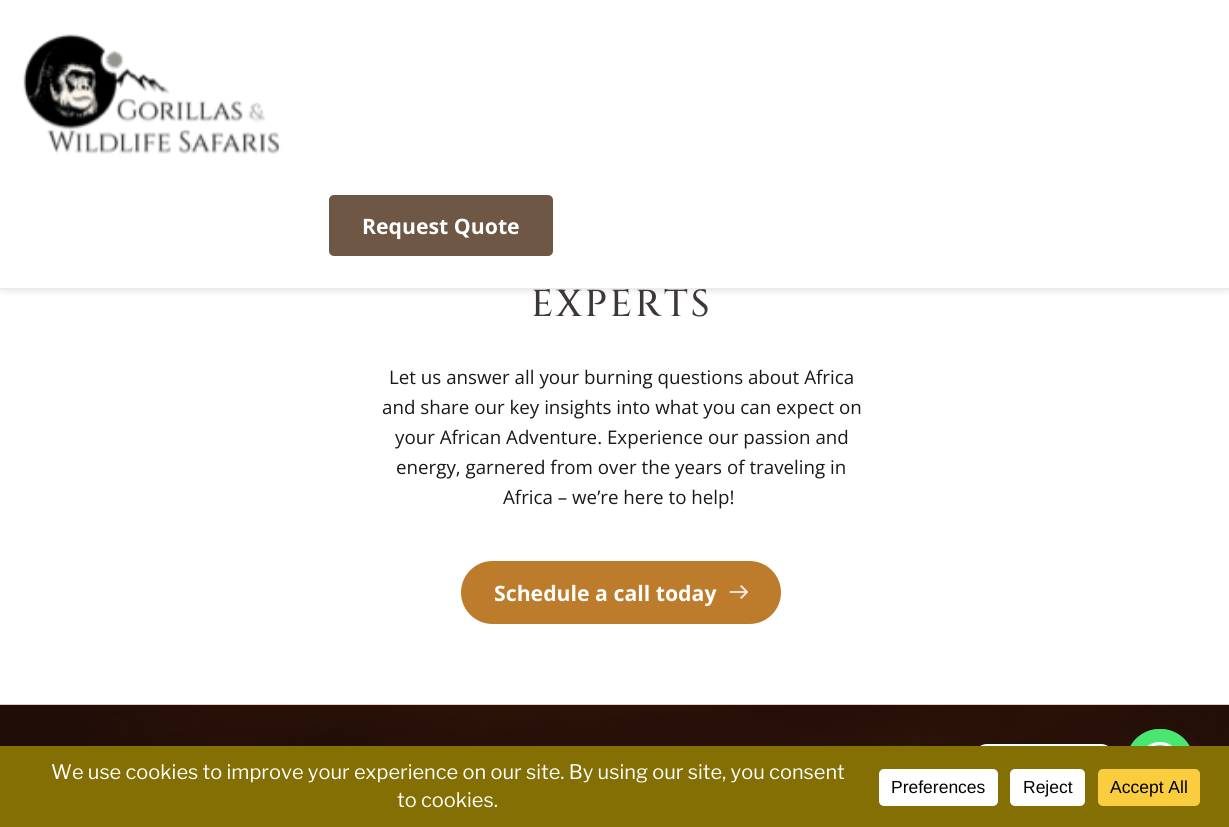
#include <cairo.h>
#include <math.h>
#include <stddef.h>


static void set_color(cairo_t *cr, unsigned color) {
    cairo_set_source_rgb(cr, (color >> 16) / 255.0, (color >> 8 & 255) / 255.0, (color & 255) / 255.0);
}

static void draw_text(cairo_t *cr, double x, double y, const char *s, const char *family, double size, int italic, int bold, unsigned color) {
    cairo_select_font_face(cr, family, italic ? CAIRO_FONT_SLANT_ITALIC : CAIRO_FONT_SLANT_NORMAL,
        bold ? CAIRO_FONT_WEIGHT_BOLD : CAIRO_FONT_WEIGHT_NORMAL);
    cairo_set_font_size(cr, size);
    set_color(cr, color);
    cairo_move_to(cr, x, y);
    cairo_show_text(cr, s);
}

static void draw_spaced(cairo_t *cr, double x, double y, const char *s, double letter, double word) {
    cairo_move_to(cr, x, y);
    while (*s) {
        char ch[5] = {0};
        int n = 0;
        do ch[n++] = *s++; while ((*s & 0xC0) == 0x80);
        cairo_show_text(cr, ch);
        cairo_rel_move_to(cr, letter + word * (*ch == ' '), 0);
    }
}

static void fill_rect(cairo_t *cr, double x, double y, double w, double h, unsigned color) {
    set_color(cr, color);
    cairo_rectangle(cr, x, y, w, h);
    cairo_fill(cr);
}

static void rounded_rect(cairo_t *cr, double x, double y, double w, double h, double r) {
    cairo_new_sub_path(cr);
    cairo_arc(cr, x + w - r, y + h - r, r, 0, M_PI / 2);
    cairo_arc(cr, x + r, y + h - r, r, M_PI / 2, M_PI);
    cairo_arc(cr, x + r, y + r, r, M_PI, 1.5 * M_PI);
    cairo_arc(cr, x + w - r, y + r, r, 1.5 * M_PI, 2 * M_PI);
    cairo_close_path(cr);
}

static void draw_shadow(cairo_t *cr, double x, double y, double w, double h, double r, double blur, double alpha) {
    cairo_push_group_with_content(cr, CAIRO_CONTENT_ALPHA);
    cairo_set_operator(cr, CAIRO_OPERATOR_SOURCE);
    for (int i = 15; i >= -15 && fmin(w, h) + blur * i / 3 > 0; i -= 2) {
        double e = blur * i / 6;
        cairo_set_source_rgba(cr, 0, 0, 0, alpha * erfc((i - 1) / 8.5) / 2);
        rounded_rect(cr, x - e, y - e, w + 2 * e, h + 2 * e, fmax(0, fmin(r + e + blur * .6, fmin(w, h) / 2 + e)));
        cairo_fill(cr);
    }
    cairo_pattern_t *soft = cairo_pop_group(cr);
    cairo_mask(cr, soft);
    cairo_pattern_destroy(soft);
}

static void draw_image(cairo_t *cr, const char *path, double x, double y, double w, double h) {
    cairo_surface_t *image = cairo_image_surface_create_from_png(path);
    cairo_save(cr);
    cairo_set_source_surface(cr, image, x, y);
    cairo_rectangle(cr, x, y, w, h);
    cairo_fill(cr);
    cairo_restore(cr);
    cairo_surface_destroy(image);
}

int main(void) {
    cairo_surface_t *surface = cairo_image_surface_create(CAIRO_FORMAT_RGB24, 1229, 827);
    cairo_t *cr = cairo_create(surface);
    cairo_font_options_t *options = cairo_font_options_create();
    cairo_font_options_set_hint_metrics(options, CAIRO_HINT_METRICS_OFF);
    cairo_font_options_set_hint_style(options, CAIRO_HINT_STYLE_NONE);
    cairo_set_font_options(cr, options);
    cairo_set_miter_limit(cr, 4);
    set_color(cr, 0xFFFFFF);
    cairo_paint(cr);
    set_color(cr, 0x000000);
    draw_shadow(cr, 0, 1, 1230, 288, 0, 4.5, 0.15);
    fill_rect(cr, 0, 0, 1229, 288, 0xFFFFFF);
    draw_image(cr, "assets/img1.png", 23, 34, 258, 120);
    set_color(cr, 0x6E5744);
    rounded_rect(cr, 329, 195, 224, 61, 5);
    cairo_fill(cr);
    draw_text(cr, 362, 234, "Request Quote", "Open Sans", 21.25, 0, 1, 0xFFFFFF);
    cairo_select_font_face(cr, "Cinzel Medium", CAIRO_FONT_SLANT_NORMAL, CAIRO_FONT_WEIGHT_NORMAL);
    cairo_set_font_size(cr, 37.5);
    set_color(cr, 0x3D3737);
    draw_spaced(cr, 531, 316, "EXPERTS", 2.75, 0);
    draw_text(cr, 389, 384, "Let us answer all your burning questions about Africa", "Open Sans", 18.75, 0, 0, 0x1A1818);
    draw_text(cr, 382, 414, "and share our key insights into what you can expect on", "Open Sans", 18.75, 0, 0, 0x1A1818);
    draw_text(cr, 395, 444, "your African Adventure. Experience our passion and", "Open Sans", 18.75, 0, 0, 0x1A1818);
    draw_text(cr, 396, 474, "energy, garnered from over the years of traveling in", "Open Sans", 18.75, 0, 0, 0x1A1818);
    draw_text(cr, 503, 504, "Africa – we’re here to help!", "Open Sans", 18.75, 0, 0, 0x1A1818);
    set_color(cr, 0xBD7C2B);
    rounded_rect(cr, 461, 561, 320, 63, 31.5);
    cairo_fill(cr);
    draw_text(cr, 494, 601, "Schedule a call today", "Open Sans", 21.25, 0, 1, 0xFFFFFF);
    draw_image(cr, "assets/img2.png", 729, 585, 19, 14);
    draw_image(cr, "assets/img3.png", 0, 704, 1229, 42);
    set_color(cr, 0x49687E);
    draw_shadow(cr, 1126, 749, 68, 67, 33.5, 15, 0.16);
    set_color(cr, 0x49E670);
    rounded_rect(cr, 1126, 729, 68, 67, 33.5);
    cairo_fill(cr);
    set_color(cr, 0x000000);
    draw_shadow(cr, 974, 745, 140, 39, 13, 5, 0.15);
    set_color(cr, 0xFFFFFF);
    rounded_rect(cr, 974, 744, 140, 39, 13);
    cairo_fill(cr);
    draw_image(cr, "assets/img4.png", 1131, 729, 58, 17);
    fill_rect(cr, 0, 746, 1229, 81, 0x846F04);
    draw_text(cr, 51, 779, "We use cookies to improve your experience on our site. By using our site, you consent", "Libre Franklin Thin", 20, 0, 0, 0xFFFFFF);
    draw_text(cr, 397, 807, "to cookies.", "Libre Franklin Thin", 20, 0, 0, 0xFFFFFF);
    rounded_rect(cr, 879, 769, 119, 37, 5);
    cairo_fill(cr);
    draw_text(cr, 891, 793, "Preferences", "Liberation Sans", 17.5, 0, 0, 0x000000);
    set_color(cr, 0xFFFFFF);
    rounded_rect(cr, 1010, 769, 75, 37, 5);
    cairo_fill(cr);
    draw_text(cr, 1023, 793, "Reject", "Liberation Sans", 17.5, 0, 0, 0x000000);
    set_color(cr, 0xF9CD3E);
    rounded_rect(cr, 1098, 769, 102, 37, 5);
    cairo_fill(cr);
    draw_text(cr, 1110, 793, "Accept All", "Liberation Sans", 17.5, 0, 0, 0x000000);
    cairo_surface_write_to_png(surface, "output.png");
    cairo_font_options_destroy(options);
    cairo_destroy(cr);
    cairo_surface_destroy(surface);
    return 0;
}
